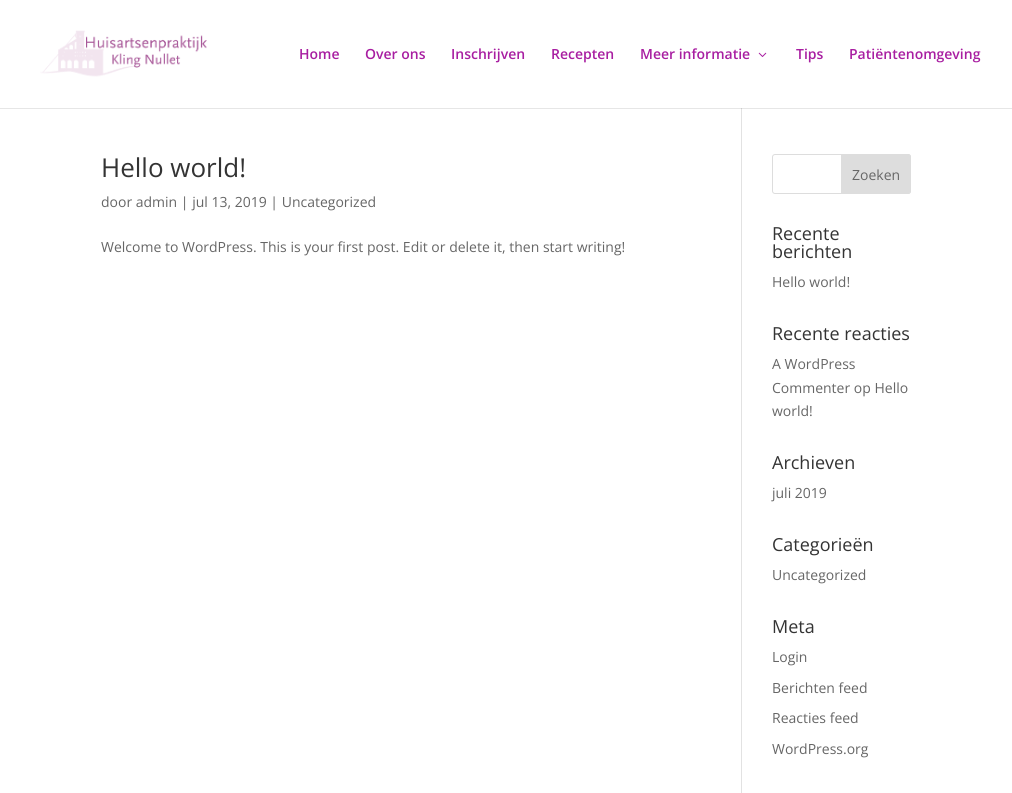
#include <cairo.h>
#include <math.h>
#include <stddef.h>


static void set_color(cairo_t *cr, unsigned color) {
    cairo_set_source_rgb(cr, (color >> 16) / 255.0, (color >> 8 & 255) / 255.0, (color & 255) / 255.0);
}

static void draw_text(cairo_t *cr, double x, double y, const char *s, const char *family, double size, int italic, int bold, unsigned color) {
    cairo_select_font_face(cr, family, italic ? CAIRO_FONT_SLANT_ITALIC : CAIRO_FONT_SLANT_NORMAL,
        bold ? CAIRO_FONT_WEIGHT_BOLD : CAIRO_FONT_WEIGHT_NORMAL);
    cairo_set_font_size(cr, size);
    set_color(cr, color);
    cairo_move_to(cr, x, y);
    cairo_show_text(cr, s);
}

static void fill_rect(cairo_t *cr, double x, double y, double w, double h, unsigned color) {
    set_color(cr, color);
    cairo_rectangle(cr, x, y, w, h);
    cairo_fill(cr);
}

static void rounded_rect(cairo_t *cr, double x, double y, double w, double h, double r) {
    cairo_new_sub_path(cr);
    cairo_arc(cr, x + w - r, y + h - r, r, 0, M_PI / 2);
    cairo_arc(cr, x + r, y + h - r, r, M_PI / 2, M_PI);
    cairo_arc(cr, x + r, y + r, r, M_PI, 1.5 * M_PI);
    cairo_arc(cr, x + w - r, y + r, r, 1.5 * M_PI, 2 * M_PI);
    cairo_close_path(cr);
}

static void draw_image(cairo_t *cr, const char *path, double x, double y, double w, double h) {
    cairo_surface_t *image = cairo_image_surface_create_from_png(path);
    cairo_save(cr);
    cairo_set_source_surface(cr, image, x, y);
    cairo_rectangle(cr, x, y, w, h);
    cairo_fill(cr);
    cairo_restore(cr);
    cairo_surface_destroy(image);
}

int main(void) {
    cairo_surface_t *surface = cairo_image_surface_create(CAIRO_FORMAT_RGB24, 1012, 793);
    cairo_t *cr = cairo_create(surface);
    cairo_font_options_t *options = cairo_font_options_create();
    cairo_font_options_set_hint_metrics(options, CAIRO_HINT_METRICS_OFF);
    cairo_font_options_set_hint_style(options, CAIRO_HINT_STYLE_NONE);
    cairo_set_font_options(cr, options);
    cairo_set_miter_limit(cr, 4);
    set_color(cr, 0xFFFFFF);
    cairo_paint(cr);
    fill_rect(cr, 0, 108, 1012, 1, 0xE6E6E6);
    draw_image(cr, "assets/img1.png", 40, 30, 167, 47);
    draw_text(cr, 299, 59, "Home", "Open Sans SemiBold", 14, 0, 0, 0xA81EA1);
    draw_text(cr, 365, 59, "Over ons", "Open Sans SemiBold", 14, 0, 0, 0xA81EA1);
    draw_text(cr, 451, 59, "Inschrijven", "Open Sans SemiBold", 14, 0, 0, 0xA81EA1);
    draw_text(cr, 551, 59, "Recepten", "Open Sans SemiBold", 14, 0, 0, 0xA81EA1);
    draw_text(cr, 640, 59, "Meer informatie", "Open Sans SemiBold", 14, 0, 0, 0xA81EA1);
    draw_image(cr, "assets/img2.png", 758, 52, 9, 5);
    draw_text(cr, 796, 59, "Tips", "Open Sans SemiBold", 14, 0, 0, 0xA81EA1);
    draw_text(cr, 849, 59, "Patiëntenomgeving", "Open Sans SemiBold", 14, 0, 0, 0xA81EA1);
    fill_rect(cr, 741, 109, 1, 684, 0xE2E2E2);
    fill_rect(cr, 741, 108, 1, 1, 0xCBCBCB);
    draw_text(cr, 101, 177, "Hello world!", "Open Sans", 26, 0, 0, 0x333333);
    draw_text(cr, 101, 207, "door admin | jul 13, 2019 | Uncategorized", "Open Sans", 14, 0, 0, 0x666666);
    draw_text(cr, 101, 252, "Welcome to WordPress. This is your first post. Edit or delete it, then start writing!", "Open Sans", 14, 0, 0, 0x666666);
    rounded_rect(cr, 772.5, 154.5, 138, 39, 2.5);
    set_color(cr, 0xDDDDDD);
    cairo_set_line_width(cr, 1);
    cairo_stroke(cr);
    cairo_new_path(cr);
    cairo_move_to(cr, 841.5, 154.5);
    cairo_line_to(cr, 908, 154.5);
    cairo_curve_to(cr, 909.5, 154.5, 910.5, 155.5, 910.5, 157);
    cairo_line_to(cr, 910.5, 191);
    cairo_curve_to(cr, 910.5, 192.5, 909.5, 193.5, 908, 193.5);
    cairo_line_to(cr, 841.5, 193.5);
    cairo_close_path(cr);
    cairo_fill_preserve(cr);
    cairo_stroke(cr);
    draw_text(cr, 852, 180, "Zoeken", "Open Sans", 14, 0, 0, 0x666666);
    draw_text(cr, 772, 240, "Recente", "Open Sans", 18, 0, 0, 0x333333);
    draw_text(cr, 772, 258, "berichten", "Open Sans", 18, 0, 0, 0x333333);
    draw_text(cr, 772, 287, "Hello world!", "Open Sans", 14, 0, 0, 0x666666);
    draw_text(cr, 772, 340, "Recente reacties", "Open Sans", 18, 0, 0, 0x333333);
    draw_text(cr, 772, 369, "A WordPress", "Open Sans", 14, 0, 0, 0x666666);
    draw_text(cr, 772, 393, "Commenter op Hello", "Open Sans", 14, 0, 0, 0x666666);
    draw_text(cr, 772, 416, "world!", "Open Sans", 14, 0, 0, 0x666666);
    draw_text(cr, 772, 469, "Archieven", "Open Sans", 18, 0, 0, 0x333333);
    draw_text(cr, 772, 498, "juli 2019", "Open Sans", 14, 0, 0, 0x666666);
    draw_text(cr, 772, 551, "Categorieën", "Open Sans", 18, 0, 0, 0x333333);
    draw_text(cr, 772, 580, "Uncategorized", "Open Sans", 14, 0, 0, 0x666666);
    draw_text(cr, 772, 633, "Meta", "Open Sans", 18, 0, 0, 0x333333);
    draw_text(cr, 772, 662, "Login", "Open Sans", 14, 0, 0, 0x666666);
    draw_text(cr, 772, 693, "Berichten feed", "Open Sans", 14, 0, 0, 0x666666);
    draw_text(cr, 772, 723, "Reacties feed", "Open Sans", 14, 0, 0, 0x666666);
    draw_text(cr, 772, 754, "WordPress.org", "Open Sans", 14, 0, 0, 0x666666);
    cairo_surface_write_to_png(surface, "output.png");
    cairo_font_options_destroy(options);
    cairo_destroy(cr);
    cairo_surface_destroy(surface);
    return 0;
}
